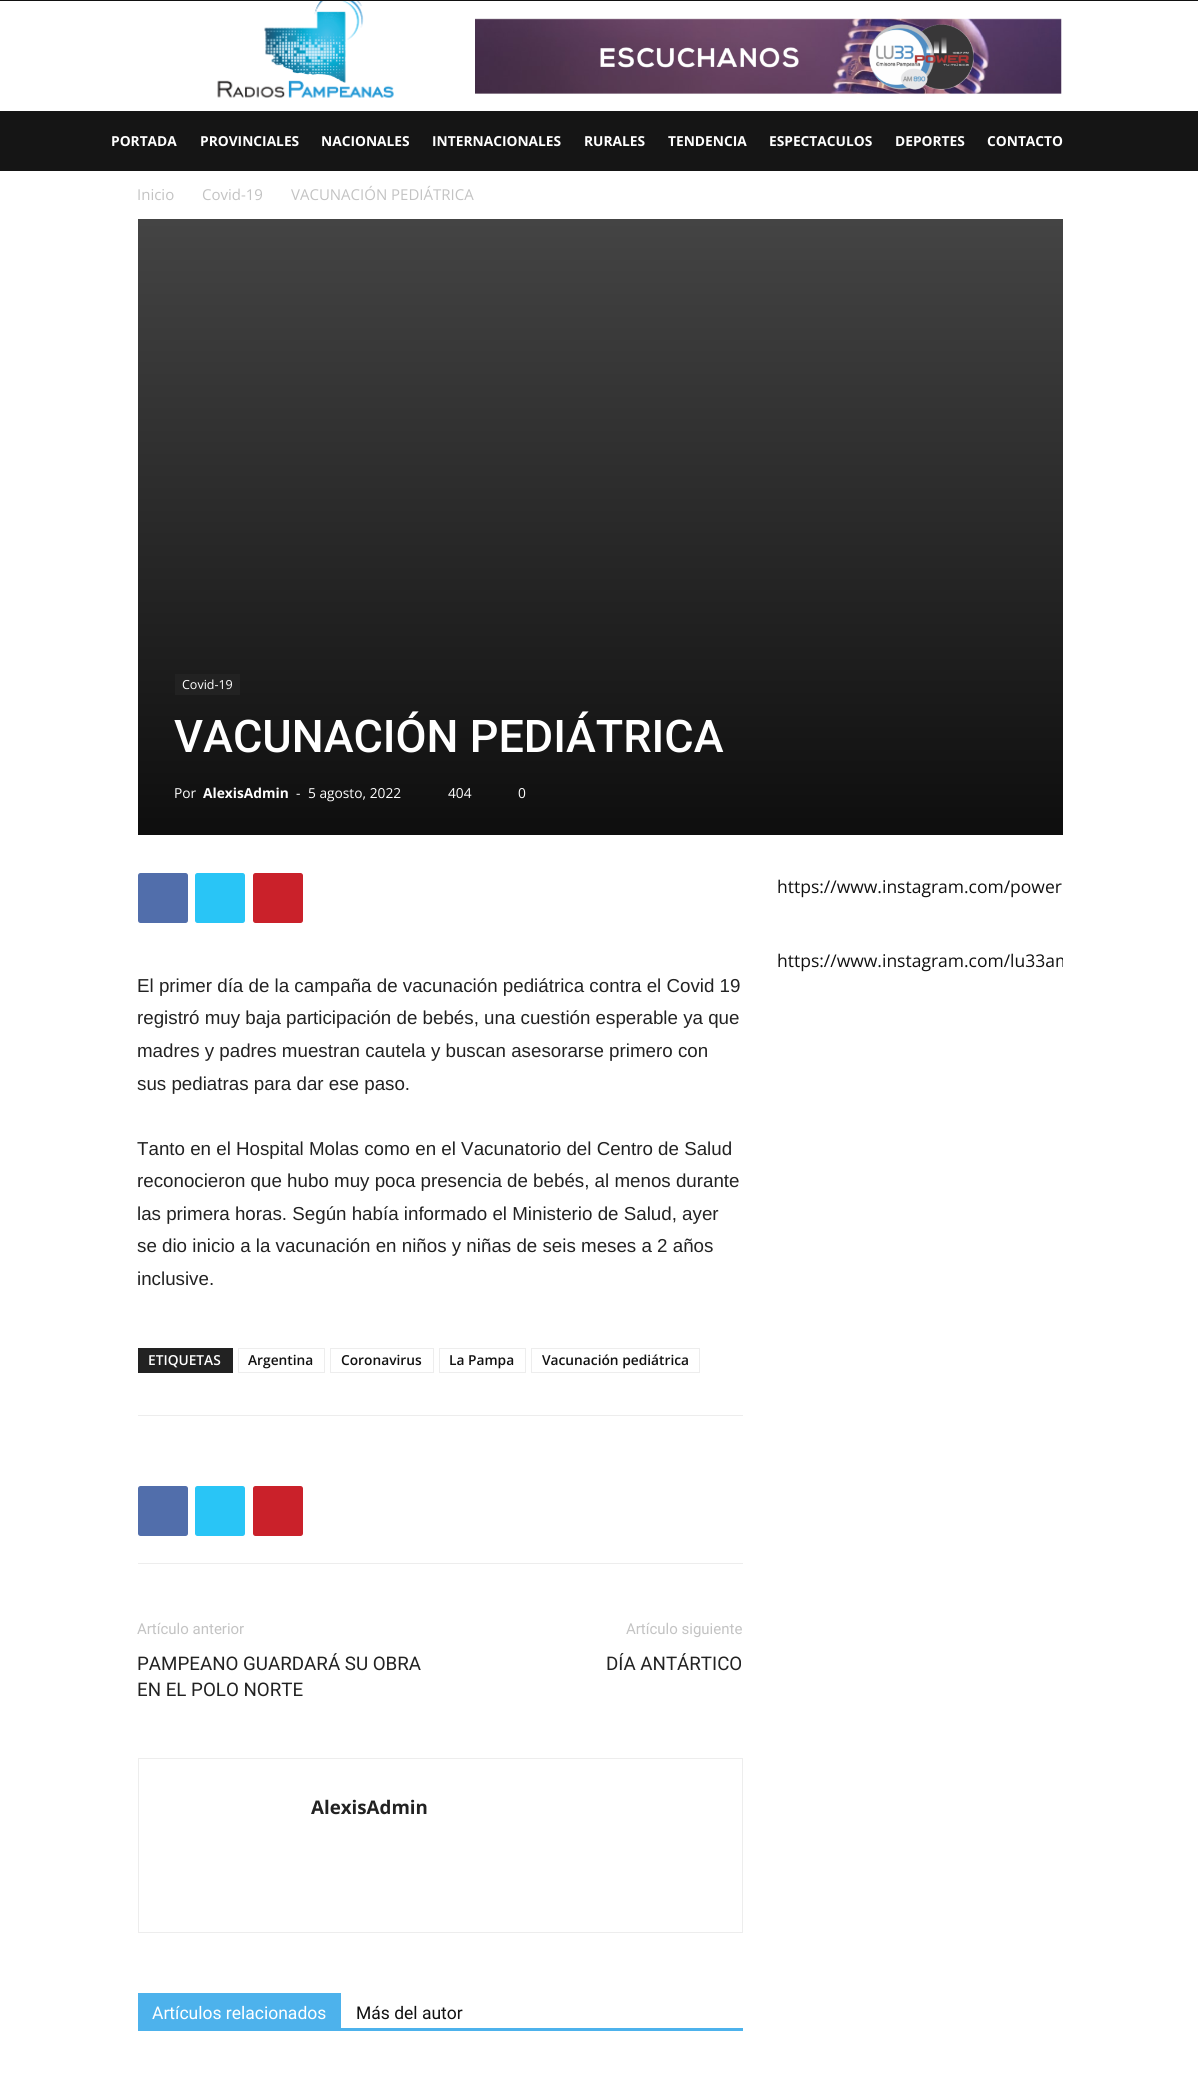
#include <cairo.h>
#include <math.h>
#include <stddef.h>


static void set_color(cairo_t *cr, unsigned color) {
    cairo_set_source_rgb(cr, (color >> 16) / 255.0, (color >> 8 & 255) / 255.0, (color & 255) / 255.0);
}

static void draw_text(cairo_t *cr, double x, double y, const char *s, const char *family, double size, int italic, int bold, unsigned color) {
    cairo_select_font_face(cr, family, italic ? CAIRO_FONT_SLANT_ITALIC : CAIRO_FONT_SLANT_NORMAL,
        bold ? CAIRO_FONT_WEIGHT_BOLD : CAIRO_FONT_WEIGHT_NORMAL);
    cairo_set_font_size(cr, size);
    set_color(cr, color);
    cairo_move_to(cr, x, y);
    cairo_show_text(cr, s);
}

static void fill_rect(cairo_t *cr, double x, double y, double w, double h, unsigned color) {
    set_color(cr, color);
    cairo_rectangle(cr, x, y, w, h);
    cairo_fill(cr);
}

static void rounded_rect(cairo_t *cr, double x, double y, double w, double h, double r) {
    cairo_new_sub_path(cr);
    cairo_arc(cr, x + w - r, y + h - r, r, 0, M_PI / 2);
    cairo_arc(cr, x + r, y + h - r, r, M_PI / 2, M_PI);
    cairo_arc(cr, x + r, y + r, r, M_PI, 1.5 * M_PI);
    cairo_arc(cr, x + w - r, y + r, r, 1.5 * M_PI, 2 * M_PI);
    cairo_close_path(cr);
}

static void draw_image(cairo_t *cr, const char *path, double x, double y, double w, double h) {
    cairo_surface_t *image = cairo_image_surface_create_from_png(path);
    cairo_save(cr);
    cairo_set_source_surface(cr, image, x, y);
    cairo_rectangle(cr, x, y, w, h);
    cairo_fill(cr);
    cairo_restore(cr);
    cairo_surface_destroy(image);
}

int main(void) {
    cairo_surface_t *surface = cairo_image_surface_create(CAIRO_FORMAT_RGB24, 1198, 2080);
    cairo_t *cr = cairo_create(surface);
    cairo_font_options_t *options = cairo_font_options_create();
    cairo_font_options_set_hint_metrics(options, CAIRO_HINT_METRICS_OFF);
    cairo_font_options_set_hint_style(options, CAIRO_HINT_STYLE_NONE);
    cairo_set_font_options(cr, options);
    cairo_set_miter_limit(cr, 4);
    cairo_pattern_t *gradient;
    set_color(cr, 0xFFFFFF);
    cairo_paint(cr);
    fill_rect(cr, 0, 0, 1198, 1, 0x111111);
    draw_image(cr, "assets/img1.png", 217, 1, 177, 97);
    draw_image(cr, "assets/img2.png", 475, 18, 587, 76);
    fill_rect(cr, 0, 111, 1198, 60, 0x151515);
    draw_text(cr, 111, 146, "PORTADA", "Open Sans", 13.75, 0, 1, 0xFFFFFF);
    draw_text(cr, 200, 146, "PROVINCIALES", "Open Sans", 13.75, 0, 1, 0xFFFFFF);
    draw_text(cr, 321, 146, "NACIONALES", "Open Sans", 13.75, 0, 1, 0xFFFFFF);
    draw_text(cr, 432, 146, "INTERNACIONALES", "Open Sans", 13.75, 0, 1, 0xFFFFFF);
    draw_text(cr, 584, 146, "RURALES", "Open Sans", 13.75, 0, 1, 0xFFFFFF);
    draw_text(cr, 668, 146, "TENDENCIA", "Open Sans", 13.75, 0, 1, 0xFFFFFF);
    draw_text(cr, 769, 146, "ESPECTACULOS", "Open Sans", 13.75, 0, 1, 0xFFFFFF);
    draw_text(cr, 895, 146, "DEPORTES", "Open Sans", 13.75, 0, 1, 0xFFFFFF);
    draw_text(cr, 987, 146, "CONTACTO", "Open Sans", 13.75, 0, 1, 0xFFFFFF);
    draw_text(cr, 137, 200, "Inicio", "Open Sans", 15, 0, 0, 0xC3C3C3);
    draw_text(cr, 202, 200, "Covid-19", "Open Sans", 15, 0, 0, 0xC3C3C3);
    draw_text(cr, 291, 200, "VACUNACIÓN PEDIÁTRICA", "Open Sans", 15, 0, 0, 0xC3C3C3);
    gradient = cairo_pattern_create_linear(600, 219, 600, 835);
    cairo_pattern_add_color_stop_rgba(gradient, 0, 0.267, 0.267, 0.267, 1);
    cairo_pattern_add_color_stop_rgba(gradient, 1, 0.055, 0.055, 0.055, 1);
    cairo_set_source(cr, gradient);
    cairo_pattern_destroy(gradient);
    cairo_rectangle(cr, 138, 219, 925, 616);
    cairo_fill(cr);
    fill_rect(cr, 175, 674, 65, 21, 0x222222);
    draw_text(cr, 182, 689, "Covid-19", "Open Sans", 12.5, 0, 0, 0xFFFFFF);
    draw_text(cr, 174, 752, "VACUNACIÓN PEDIÁTRICA", "Roboto Medium", 45, 0, 0, 0xFFFFFF);
    draw_text(cr, 174, 798, "Por", "Open Sans", 13.75, 0, 0, 0xFFFFFF);
    draw_text(cr, 203, 798, "AlexisAdmin", "Open Sans", 13.75, 0, 1, 0xFFFFFF);
    draw_text(cr, 296, 798, "-", "Open Sans", 13.75, 0, 0, 0xFFFFFF);
    draw_text(cr, 308, 798, "5 agosto, 2022", "Open Sans", 13.75, 0, 0, 0xFFFFFF);
    draw_text(cr, 448, 798, "404", "Open Sans", 13.75, 0, 0, 0xFFFFFF);
    draw_text(cr, 518, 798, "0", "Open Sans", 13.75, 0, 0, 0xFFFFFF);
    draw_text(cr, 777, 893, "https://www.instagram.com/power", "Open Sans", 17.5, 0, 0, 0x111111);
    cairo_save(cr);
    cairo_rectangle(cr, 778, 946, 285, 27);
    cairo_clip(cr);
    draw_text(cr, 777, 967, "https://www.instagram.com/lu33am", "Open Sans", 17.5, 0, 0, 0x111111);
    cairo_restore(cr);
    set_color(cr, 0x516EAB);
    rounded_rect(cr, 138, 873, 50, 50, 2.5);
    cairo_fill(cr);
    set_color(cr, 0x29C5F6);
    rounded_rect(cr, 195, 873, 50, 50, 2.5);
    cairo_fill(cr);
    set_color(cr, 0xCA212A);
    rounded_rect(cr, 253, 873, 50, 50, 2.5);
    cairo_fill(cr);
    draw_text(cr, 137, 992, "El primer día de la campaña de vacunación pediátrica contra el Covid 19", "Liberation Sans", 18.75, 0, 0, 0x222222);
    draw_text(cr, 137, 1024, "registró muy baja participación de bebés, una cuestión esperable ya que", "Liberation Sans", 18.75, 0, 0, 0x222222);
    draw_text(cr, 137, 1057, "madres y padres muestran cautela y buscan asesorarse primero con", "Liberation Sans", 18.75, 0, 0, 0x222222);
    draw_text(cr, 137, 1090, "sus pediatras para dar ese paso.", "Liberation Sans", 18.75, 0, 0, 0x222222);
    draw_text(cr, 137, 1155, "Tanto en el Hospital Molas como en el Vacunatorio del Centro de Salud", "Liberation Sans", 18.75, 0, 0, 0x222222);
    draw_text(cr, 137, 1187, "reconocieron que hubo muy poca presencia de bebés, al menos durante", "Liberation Sans", 18.75, 0, 0, 0x222222);
    draw_text(cr, 137, 1220, "las primera horas. Según había informado el Ministerio de Salud, ayer", "Liberation Sans", 18.75, 0, 0, 0x222222);
    draw_text(cr, 137, 1252, "se dio inicio a la vacunación en niños y niñas de seis meses a 2 años", "Liberation Sans", 18.75, 0, 0, 0x222222);
    draw_text(cr, 137, 1285, "inclusive.", "Liberation Sans", 18.75, 0, 0, 0x222222);
    fill_rect(cr, 138, 1348, 95, 25, 0x222222);
    draw_text(cr, 148, 1365, "ETIQUETAS", "Open Sans SemiBold", 13.75, 0, 0, 0xFFFFFF);
    cairo_rectangle(cr, 238.5, 1348.5, 86, 24);
    set_color(cr, 0xEDEDED);
    cairo_set_line_width(cr, 1);
    cairo_stroke(cr);
    draw_text(cr, 248, 1365, "Argentina", "Open Sans SemiBold", 13.75, 0, 0, 0x111111);
    cairo_rectangle(cr, 330.5, 1348.5, 103, 24);
    set_color(cr, 0xEDEDED);
    cairo_stroke(cr);
    draw_text(cr, 341, 1365, "Coronavirus", "Open Sans SemiBold", 13.75, 0, 0, 0x111111);
    cairo_rectangle(cr, 439.5, 1348.5, 86, 24);
    set_color(cr, 0xEDEDED);
    cairo_stroke(cr);
    draw_text(cr, 449, 1365, "La Pampa", "Open Sans SemiBold", 13.75, 0, 0, 0x111111);
    cairo_rectangle(cr, 531.5, 1348.5, 168, 24);
    set_color(cr, 0xEDEDED);
    cairo_stroke(cr);
    draw_text(cr, 542, 1365, "Vacunación pediátrica", "Open Sans SemiBold", 13.75, 0, 0, 0x111111);
    fill_rect(cr, 138, 1415, 605, 1, 0xEDEDED);
    fill_rect(cr, 138, 1563, 605, 1, 0xEDEDED);
    set_color(cr, 0x516EAB);
    rounded_rect(cr, 138, 1486, 50, 50, 2.5);
    cairo_fill(cr);
    set_color(cr, 0x29C5F6);
    rounded_rect(cr, 195, 1486, 50, 50, 2.5);
    cairo_fill(cr);
    set_color(cr, 0xCA212A);
    rounded_rect(cr, 253, 1486, 50, 50, 2.5);
    cairo_fill(cr);
    draw_text(cr, 137, 1634, "Artículo anterior", "Roboto", 15, 0, 0, 0xC3C3C3);
    draw_text(cr, 137, 1670, "PAMPEANO GUARDARÁ SU OBRA", "Roboto", 18.75, 0, 0, 0x222222);
    draw_text(cr, 137, 1696, "EN EL POLO NORTE", "Roboto", 18.75, 0, 0, 0x222222);
    draw_text(cr, 626, 1634, "Artículo siguiente", "Roboto", 15, 0, 0, 0xC3C3C3);
    draw_text(cr, 606, 1670, "DÍA ANTÁRTICO", "Roboto", 18.75, 0, 0, 0x222222);
    cairo_rectangle(cr, 138.5, 1758.5, 604, 174);
    set_color(cr, 0xEDEDED);
    cairo_stroke(cr);
    draw_text(cr, 311, 1814, "AlexisAdmin", "Open Sans", 18.75, 0, 1, 0x222222);
    fill_rect(cr, 138, 2028, 605, 3, 0x4DB2EC);
    fill_rect(cr, 138, 1993, 203, 35, 0x4DB2EC);
    draw_text(cr, 152, 2019, "Artículos relacionados", "Roboto", 17.5, 0, 0, 0xFFFFFF);
    draw_text(cr, 356, 2019, "Más del autor", "Roboto", 17.5, 0, 0, 0x111111);
    cairo_surface_write_to_png(surface, "output.png");
    cairo_font_options_destroy(options);
    cairo_destroy(cr);
    cairo_surface_destroy(surface);
    return 0;
}
